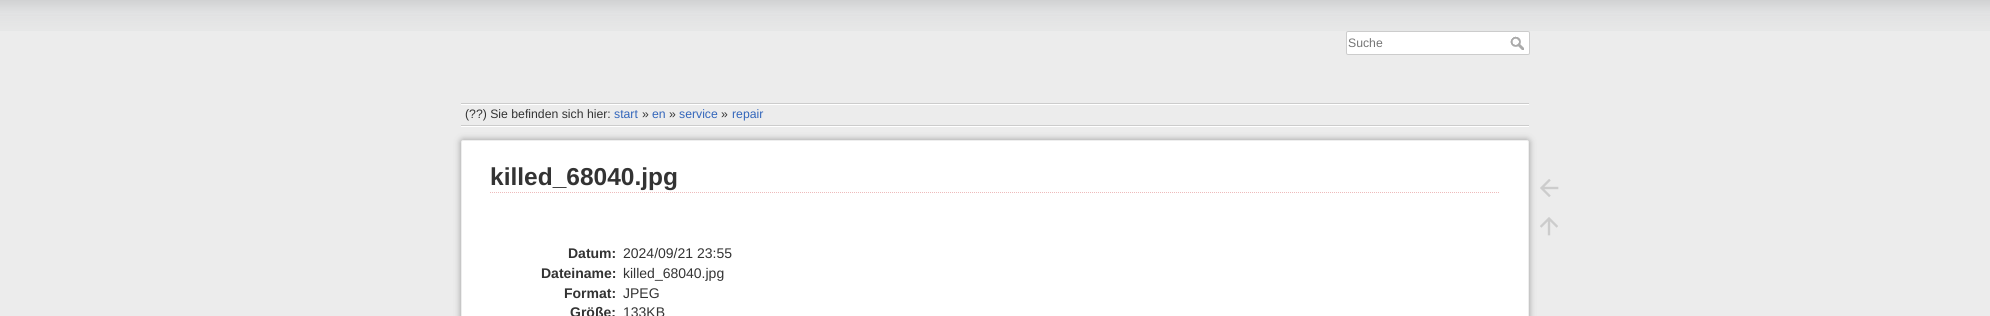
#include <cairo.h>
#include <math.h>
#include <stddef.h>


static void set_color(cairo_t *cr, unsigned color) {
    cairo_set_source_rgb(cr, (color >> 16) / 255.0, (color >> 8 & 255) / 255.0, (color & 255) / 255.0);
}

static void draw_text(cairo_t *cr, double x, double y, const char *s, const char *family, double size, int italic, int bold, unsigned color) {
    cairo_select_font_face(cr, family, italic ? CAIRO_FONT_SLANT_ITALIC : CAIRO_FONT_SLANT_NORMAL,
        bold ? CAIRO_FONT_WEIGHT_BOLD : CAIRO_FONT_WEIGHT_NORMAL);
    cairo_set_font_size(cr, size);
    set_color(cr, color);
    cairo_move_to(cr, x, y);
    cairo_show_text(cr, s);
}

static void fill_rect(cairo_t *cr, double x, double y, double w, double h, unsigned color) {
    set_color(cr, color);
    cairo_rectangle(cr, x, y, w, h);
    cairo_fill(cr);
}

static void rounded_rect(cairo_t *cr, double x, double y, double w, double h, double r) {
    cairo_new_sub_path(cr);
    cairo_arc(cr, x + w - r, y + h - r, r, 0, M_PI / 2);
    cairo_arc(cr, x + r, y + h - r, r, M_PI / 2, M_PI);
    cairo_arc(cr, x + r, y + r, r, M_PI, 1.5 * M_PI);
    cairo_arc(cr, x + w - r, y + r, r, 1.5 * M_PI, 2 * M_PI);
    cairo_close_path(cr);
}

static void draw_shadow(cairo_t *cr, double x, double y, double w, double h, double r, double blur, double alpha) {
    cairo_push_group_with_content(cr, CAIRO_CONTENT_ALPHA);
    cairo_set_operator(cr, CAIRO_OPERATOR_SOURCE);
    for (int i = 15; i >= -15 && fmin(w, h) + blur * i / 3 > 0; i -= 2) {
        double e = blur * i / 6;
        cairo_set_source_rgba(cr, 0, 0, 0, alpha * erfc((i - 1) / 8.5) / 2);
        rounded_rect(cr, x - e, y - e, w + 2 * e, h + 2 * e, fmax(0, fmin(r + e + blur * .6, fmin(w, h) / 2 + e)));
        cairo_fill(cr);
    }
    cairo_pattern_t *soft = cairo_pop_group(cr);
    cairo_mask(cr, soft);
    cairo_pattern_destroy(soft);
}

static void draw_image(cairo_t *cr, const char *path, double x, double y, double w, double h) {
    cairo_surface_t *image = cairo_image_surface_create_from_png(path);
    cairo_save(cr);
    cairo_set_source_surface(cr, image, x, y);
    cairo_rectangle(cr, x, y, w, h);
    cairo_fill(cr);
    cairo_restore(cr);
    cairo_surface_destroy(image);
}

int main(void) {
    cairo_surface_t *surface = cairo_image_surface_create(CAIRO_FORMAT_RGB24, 1990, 316);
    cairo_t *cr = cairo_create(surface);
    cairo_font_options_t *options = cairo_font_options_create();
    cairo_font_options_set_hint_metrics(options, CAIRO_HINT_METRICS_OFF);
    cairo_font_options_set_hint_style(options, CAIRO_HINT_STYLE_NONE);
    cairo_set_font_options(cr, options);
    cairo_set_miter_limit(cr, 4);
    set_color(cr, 0xECECEC);
    cairo_paint(cr);
    draw_image(cr, "assets/img1.png", 0, 0, 1990, 31);
    set_color(cr, 0xFFFFFF);
    rounded_rect(cr, 1346.5, 31.5, 183, 23, 1.5);
    cairo_fill_preserve(cr);
    set_color(cr, 0xCCCCCC);
    cairo_set_line_width(cr, 1);
    cairo_stroke(cr);
    draw_text(cr, 1348, 47, "Suche", "Liberation Sans", 12.25, 0, 0, 0x757575);
    draw_image(cr, "assets/img2.png", 1510, 36, 14, 14);
    fill_rect(cr, 461, 103, 1068, 1, 0xCCCCCC);
    fill_rect(cr, 461, 126, 1068, 1, 0xFFFFFF);
    fill_rect(cr, 461, 104, 1068, 1, 0xFFFFFF);
    fill_rect(cr, 461, 125, 1068, 1, 0xCCCCCC);
    draw_text(cr, 465, 118, "(?\077) Sie befinden sich hier:", "Liberation Sans", 12.25, 0, 0, 0x333333);
    draw_text(cr, 614, 118, "start", "Liberation Sans", 12.25, 0, 0, 0x3366BB);
    draw_text(cr, 642, 118, "»", "Liberation Sans", 12.25, 0, 0, 0x333333);
    draw_text(cr, 652, 118, "en", "Liberation Sans", 12.25, 0, 0, 0x3366BB);
    draw_text(cr, 669, 118, "»", "Liberation Sans", 12.25, 0, 0, 0x333333);
    draw_text(cr, 679, 118, "service", "Liberation Sans", 12.25, 0, 0, 0x3366BB);
    draw_text(cr, 721, 118, "»", "Liberation Sans", 12.25, 0, 0, 0x333333);
    draw_text(cr, 732, 118, "repair", "Liberation Sans", 12.25, 0, 0, 0x3366BB);
    set_color(cr, 0x999999);
    draw_shadow(cr, 461, 140, 1068, 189, 2, 3.5, 1);
    set_color(cr, 0xFFFFFF);
    rounded_rect(cr, 461.5, 140.5, 1067, 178, 1.5);
    cairo_fill_preserve(cr);
    set_color(cr, 0xEEEEEE);
    cairo_stroke(cr);
    cairo_new_path(cr);
    cairo_move_to(cr, 490, 192.5);
    cairo_line_to(cr, 1500, 192.5);
    set_color(cr, 0xEEBBBB);
    cairo_set_dash(cr, (double[]){1, 1}, 2, 0);
    cairo_stroke(cr);
    draw_text(cr, 490, 185, "killed_68040.jpg", "Liberation Sans", 24.5, 0, 1, 0x333333);
    draw_text(cr, 568, 258, "Datum:", "Liberation Sans", 14, 0, 1, 0x333333);
    draw_text(cr, 623, 258, "2024/09/21 23:55", "Liberation Sans", 14, 0, 0, 0x333333);
    draw_text(cr, 541, 278, "Dateiname:", "Liberation Sans", 14, 0, 1, 0x333333);
    draw_text(cr, 623, 278, "killed_68040.jpg", "Liberation Sans", 14, 0, 0, 0x333333);
    draw_text(cr, 564, 298, "Format:", "Liberation Sans", 14, 0, 1, 0x333333);
    draw_text(cr, 623, 298, "JPEG", "Liberation Sans", 14, 0, 0, 0x333333);
    draw_text(cr, 570, 317, "Größe:", "Liberation Sans", 14, 0, 1, 0x333333);
    draw_text(cr, 623, 317, "133KB", "Liberation Sans", 14, 0, 0, 0x333333);
    draw_image(cr, "assets/img3.png", 1540, 179, 19, 18);
    draw_image(cr, "assets/img4.png", 1540, 217, 18, 19);
    cairo_surface_write_to_png(surface, "output.png");
    cairo_font_options_destroy(options);
    cairo_destroy(cr);
    cairo_surface_destroy(surface);
    return 0;
}
